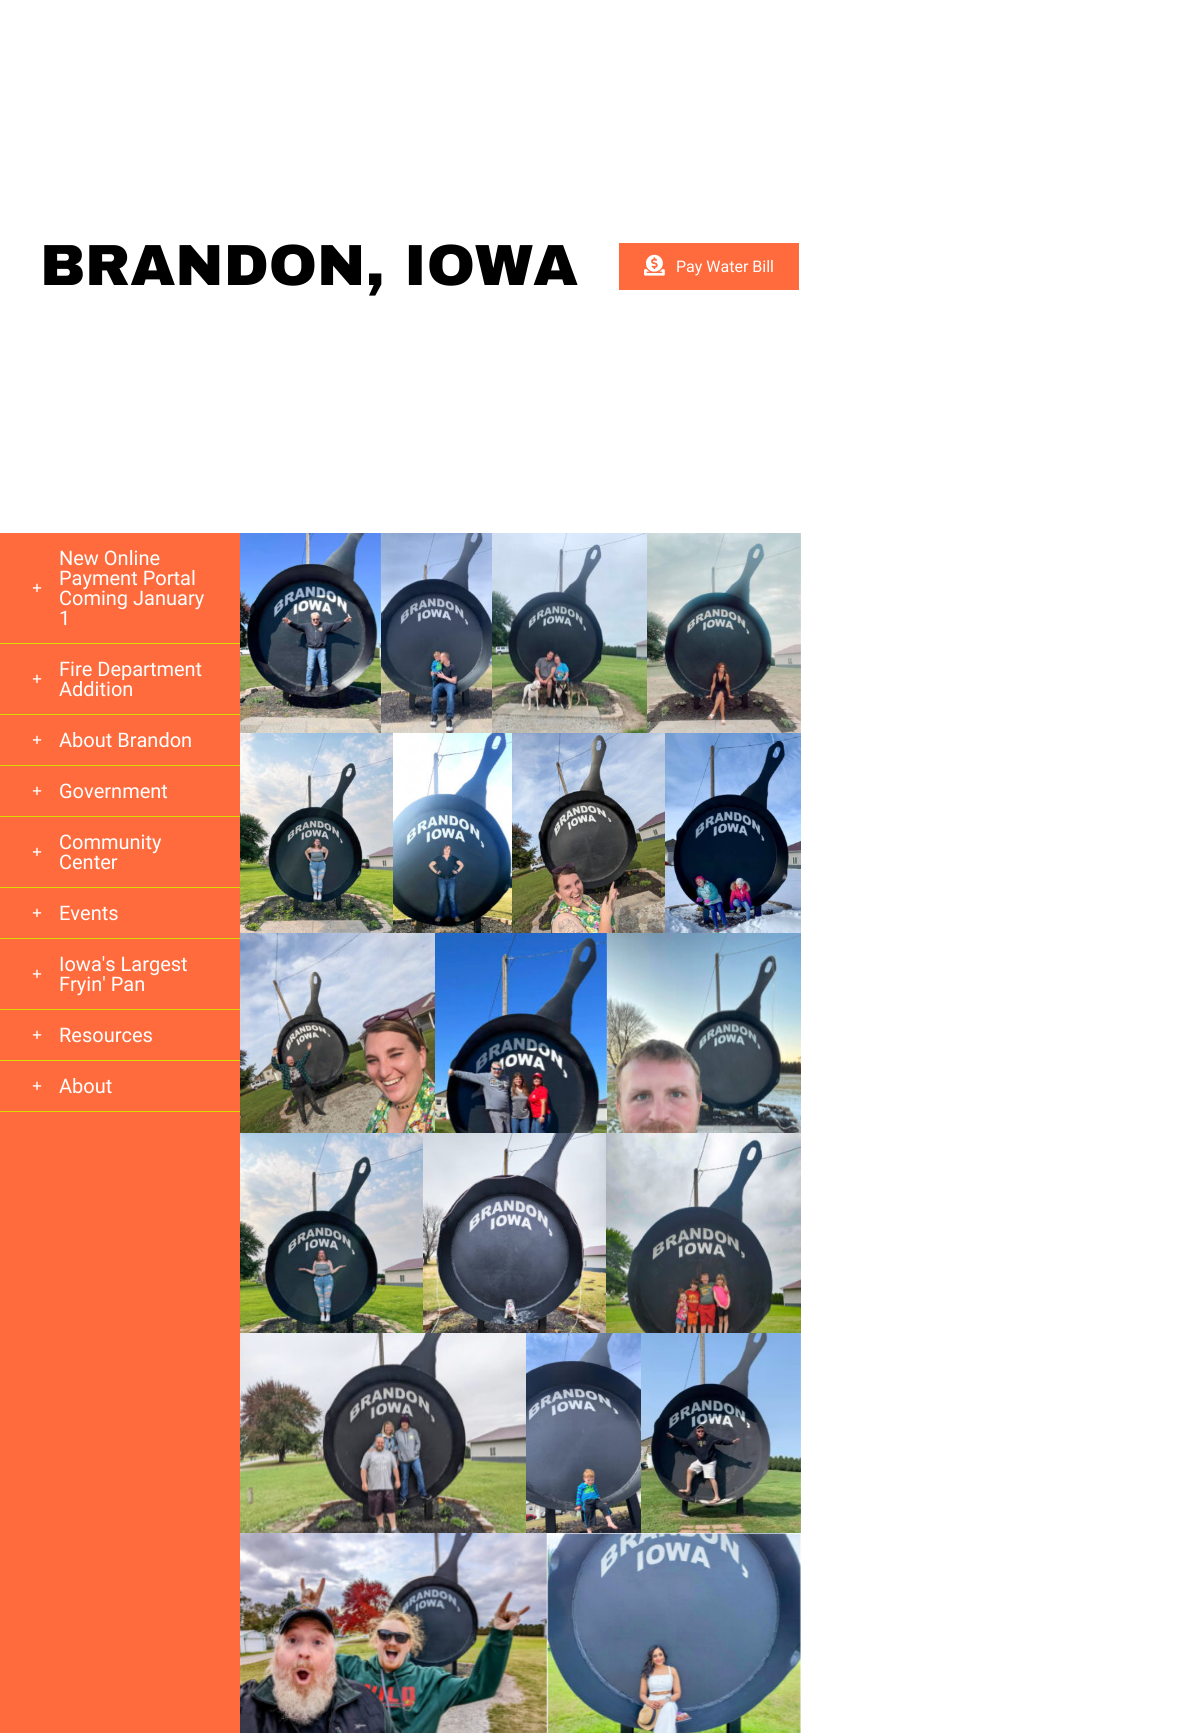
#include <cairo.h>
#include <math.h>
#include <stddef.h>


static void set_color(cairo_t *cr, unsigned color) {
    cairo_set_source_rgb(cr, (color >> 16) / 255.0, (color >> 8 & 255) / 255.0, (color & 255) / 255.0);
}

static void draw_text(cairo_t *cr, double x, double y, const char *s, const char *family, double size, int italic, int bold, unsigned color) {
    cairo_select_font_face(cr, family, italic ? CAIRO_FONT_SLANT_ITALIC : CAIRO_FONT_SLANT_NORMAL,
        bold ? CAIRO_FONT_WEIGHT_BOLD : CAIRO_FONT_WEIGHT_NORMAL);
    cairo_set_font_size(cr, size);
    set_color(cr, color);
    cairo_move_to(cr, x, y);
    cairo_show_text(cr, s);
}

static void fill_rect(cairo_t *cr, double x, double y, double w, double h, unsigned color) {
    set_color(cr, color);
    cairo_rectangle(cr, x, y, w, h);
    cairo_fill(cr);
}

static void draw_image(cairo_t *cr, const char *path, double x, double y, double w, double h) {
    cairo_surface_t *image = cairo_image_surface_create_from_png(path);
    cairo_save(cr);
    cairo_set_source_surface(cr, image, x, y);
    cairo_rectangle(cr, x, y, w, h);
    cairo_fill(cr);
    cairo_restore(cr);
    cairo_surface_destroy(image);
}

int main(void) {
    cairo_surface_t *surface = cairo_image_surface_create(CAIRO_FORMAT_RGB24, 1202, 1733);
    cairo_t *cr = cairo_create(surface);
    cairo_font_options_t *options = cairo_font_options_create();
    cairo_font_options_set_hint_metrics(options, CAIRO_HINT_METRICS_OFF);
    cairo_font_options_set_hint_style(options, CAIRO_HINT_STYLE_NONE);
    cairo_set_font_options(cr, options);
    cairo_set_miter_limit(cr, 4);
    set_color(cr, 0xFFFFFF);
    cairo_paint(cr);
    draw_text(cr, 40, 285, "BRANDON, IOWA", "Archivo Black Black", 58, 0, 0, 0x000000);
    fill_rect(cr, 619, 243, 180, 47, 0xFF6B3C);
    draw_image(cr, "assets/img1.png", 644, 254, 21, 22);
    draw_text(cr, 676, 272, "Pay Water Bill", "Roboto", 16, 0, 0, 0xFFFFFF);
    fill_rect(cr, 0, 533, 240, 1200, 0xFF6B3C);
    fill_rect(cr, 0, 643, 240, 1, 0xDDDA00);
    draw_image(cr, "assets/img2.png", 32, 583, 10, 9);
    draw_text(cr, 59, 565, "New Online", "Roboto", 20, 0, 0, 0xFFFFFF);
    draw_text(cr, 59, 585, "Payment Portal", "Roboto", 20, 0, 0, 0xFFFFFF);
    draw_text(cr, 59, 605, "Coming January", "Roboto", 20, 0, 0, 0xFFFFFF);
    draw_text(cr, 59, 625, "1", "Roboto", 20, 0, 0, 0xFFFFFF);
    fill_rect(cr, 0, 714, 240, 1, 0xDDDA00);
    draw_image(cr, "assets/img2.png", 32, 674, 10, 9);
    draw_text(cr, 59, 676, "Fire Department", "Roboto", 20, 0, 0, 0xFFFFFF);
    draw_text(cr, 59, 696, "Addition", "Roboto", 20, 0, 0, 0xFFFFFF);
    fill_rect(cr, 0, 765, 240, 1, 0xDDDA00);
    draw_image(cr, "assets/img2.png", 32, 735, 10, 9);
    draw_text(cr, 59, 747, "About Brandon", "Roboto", 20, 0, 0, 0xFFFFFF);
    fill_rect(cr, 0, 816, 240, 1, 0xDDDA00);
    draw_image(cr, "assets/img2.png", 32, 786, 10, 9);
    draw_text(cr, 59, 798, "Government", "Roboto", 20, 0, 0, 0xFFFFFF);
    fill_rect(cr, 0, 887, 240, 1, 0xDDDA00);
    draw_image(cr, "assets/img2.png", 32, 847, 10, 9);
    draw_text(cr, 59, 849, "Community", "Roboto", 20, 0, 0, 0xFFFFFF);
    draw_text(cr, 59, 869, "Center", "Roboto", 20, 0, 0, 0xFFFFFF);
    fill_rect(cr, 0, 938, 240, 1, 0xDDDA00);
    draw_image(cr, "assets/img2.png", 32, 908, 10, 9);
    draw_text(cr, 59, 920, "Events", "Roboto", 20, 0, 0, 0xFFFFFF);
    fill_rect(cr, 0, 1009, 240, 1, 0xDDDA00);
    draw_image(cr, "assets/img2.png", 32, 969, 10, 9);
    draw_text(cr, 59, 971, "Iowa's Largest", "Roboto", 20, 0, 0, 0xFFFFFF);
    draw_text(cr, 59, 991, "Fryin' Pan", "Roboto", 20, 0, 0, 0xFFFFFF);
    fill_rect(cr, 0, 1060, 240, 1, 0xDDDA00);
    draw_image(cr, "assets/img2.png", 32, 1030, 10, 9);
    draw_text(cr, 59, 1042, "Resources", "Roboto", 20, 0, 0, 0xFFFFFF);
    fill_rect(cr, 0, 1111, 240, 1, 0xDDDA00);
    draw_image(cr, "assets/img2.png", 32, 1081, 10, 9);
    draw_text(cr, 59, 1093, "About", "Roboto", 20, 0, 0, 0xFFFFFF);
    draw_image(cr, "assets/img3.png", 240, 533, 141, 200);
    draw_image(cr, "assets/img4.png", 381, 533, 111, 200);
    draw_image(cr, "assets/img5.png", 492, 533, 155, 200);
    draw_image(cr, "assets/img6.png", 647, 533, 154, 200);
    draw_image(cr, "assets/img7.png", 240, 733, 153, 200);
    draw_image(cr, "assets/img8.png", 393, 733, 119, 200);
    draw_image(cr, "assets/img9.png", 512, 733, 153, 200);
    draw_image(cr, "assets/img10.png", 665, 733, 136, 200);
    draw_image(cr, "assets/img11.png", 240, 933, 195, 200);
    draw_image(cr, "assets/img12.png", 435, 933, 172, 200);
    draw_image(cr, "assets/img13.png", 607, 933, 194, 200);
    draw_image(cr, "assets/img14.png", 240, 1133, 183, 200);
    draw_image(cr, "assets/img15.png", 423, 1133, 183, 200);
    draw_image(cr, "assets/img16.png", 606, 1133, 195, 200);
    draw_image(cr, "assets/img17.png", 240, 1333, 286, 200);
    draw_image(cr, "assets/img18.png", 526, 1333, 115, 200);
    draw_image(cr, "assets/img19.png", 641, 1333, 160, 200);
    draw_image(cr, "assets/img20.png", 240, 1533, 307, 200);
    draw_image(cr, "assets/img21.png", 547, 1533, 254, 200);
    cairo_surface_write_to_png(surface, "output.png");
    cairo_font_options_destroy(options);
    cairo_destroy(cr);
    cairo_surface_destroy(surface);
    return 0;
}
